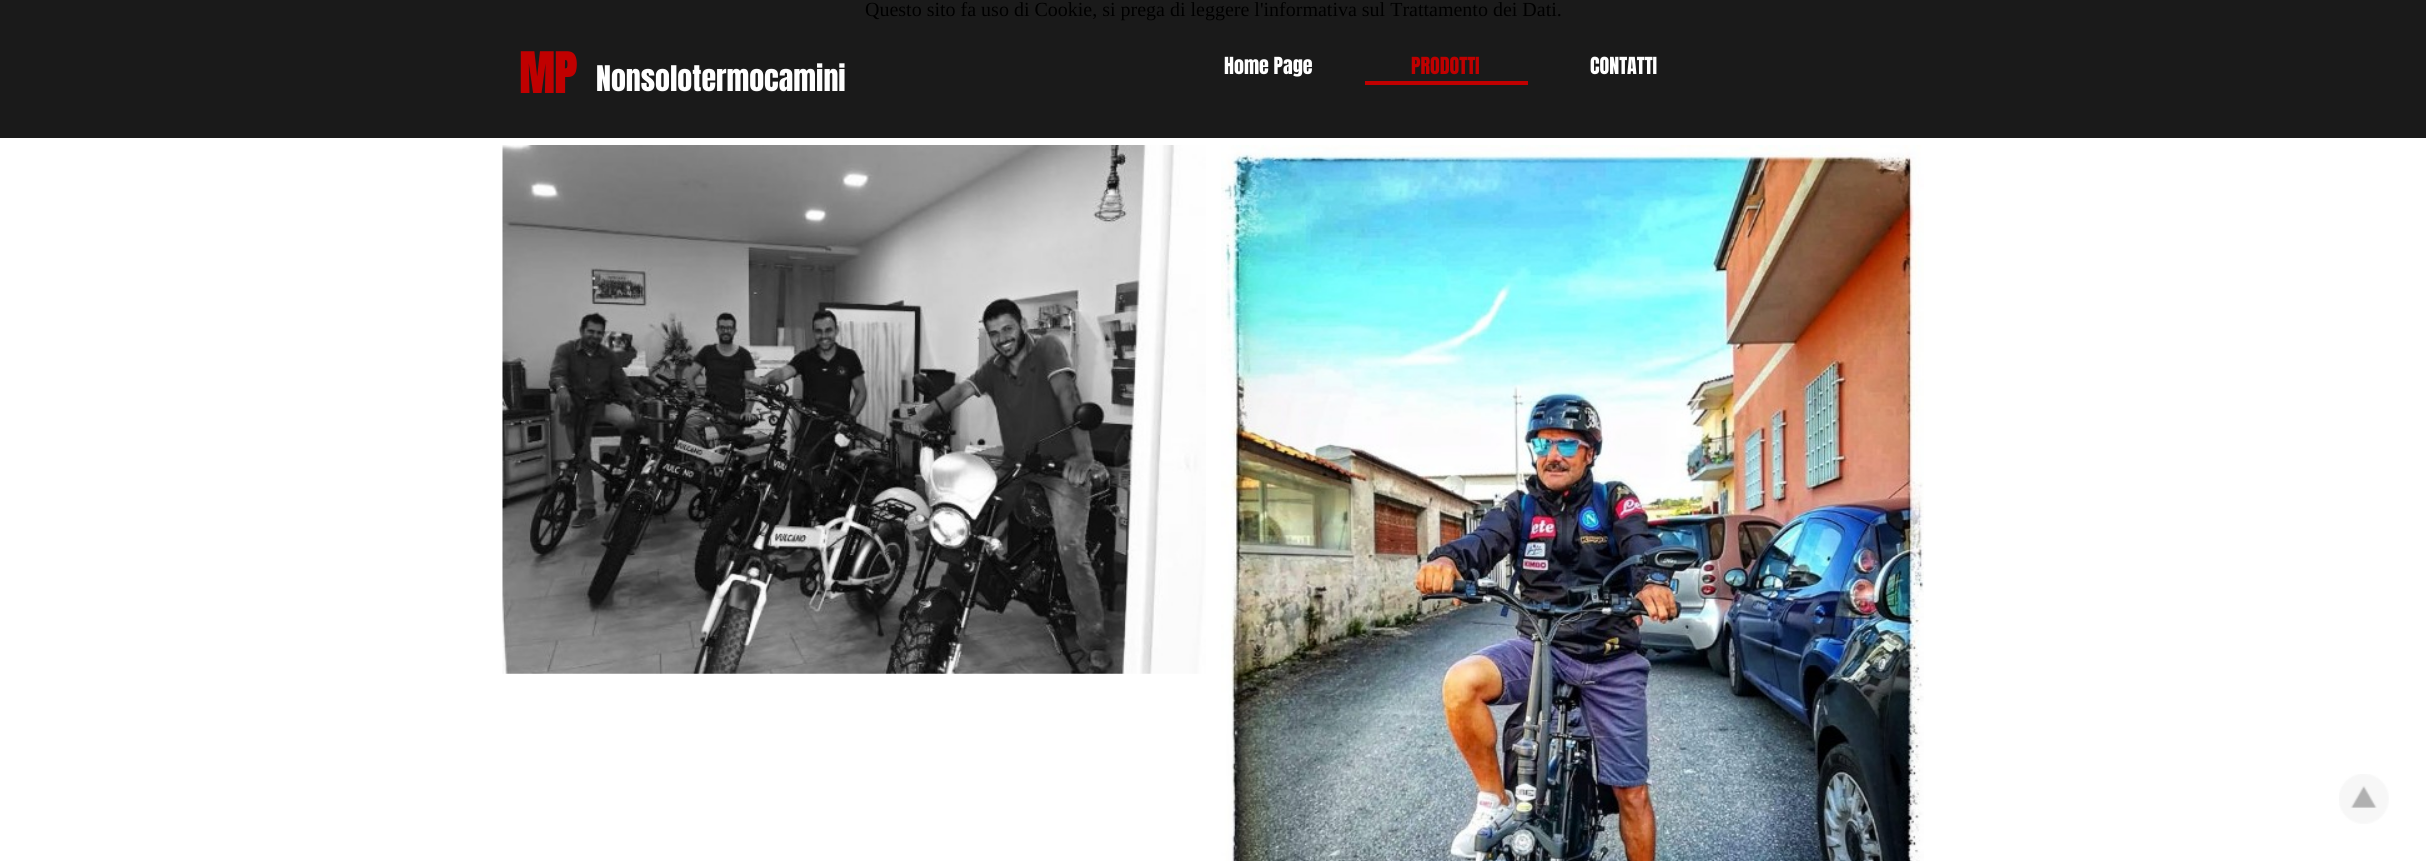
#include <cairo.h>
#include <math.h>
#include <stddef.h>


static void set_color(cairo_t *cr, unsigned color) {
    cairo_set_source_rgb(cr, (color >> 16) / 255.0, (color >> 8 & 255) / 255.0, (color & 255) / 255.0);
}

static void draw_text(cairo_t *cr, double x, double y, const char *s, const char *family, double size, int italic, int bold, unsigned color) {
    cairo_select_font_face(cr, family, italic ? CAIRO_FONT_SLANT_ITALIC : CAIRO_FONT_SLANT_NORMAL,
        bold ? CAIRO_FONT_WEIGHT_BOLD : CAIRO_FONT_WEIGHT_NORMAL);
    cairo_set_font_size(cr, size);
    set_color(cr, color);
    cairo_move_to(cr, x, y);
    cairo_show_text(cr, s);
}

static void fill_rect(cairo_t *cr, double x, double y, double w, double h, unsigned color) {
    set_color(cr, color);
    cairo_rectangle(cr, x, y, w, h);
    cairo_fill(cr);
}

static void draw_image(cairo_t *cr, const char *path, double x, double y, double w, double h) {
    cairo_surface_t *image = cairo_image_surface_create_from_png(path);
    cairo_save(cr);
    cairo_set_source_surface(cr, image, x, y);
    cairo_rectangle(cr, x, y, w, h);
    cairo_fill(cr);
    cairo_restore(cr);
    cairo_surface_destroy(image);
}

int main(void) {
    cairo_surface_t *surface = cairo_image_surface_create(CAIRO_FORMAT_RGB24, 2426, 861);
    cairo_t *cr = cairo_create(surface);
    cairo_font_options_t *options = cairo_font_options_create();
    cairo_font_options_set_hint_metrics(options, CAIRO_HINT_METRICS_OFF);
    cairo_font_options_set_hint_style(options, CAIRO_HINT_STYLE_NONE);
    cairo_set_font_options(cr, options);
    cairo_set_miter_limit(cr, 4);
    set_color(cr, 0xFFFFFF);
    cairo_paint(cr);
    fill_rect(cr, 0, 0, 2426, 138, 0x1A1A1A);
    draw_text(cr, 865, 16, "Questo sito fa uso di Cookie, si prega di leggere l'informativa sul Trattamento dei Dati.", "Liberation Serif", 20, 0, 0, 0x000000);
    draw_text(cr, 519, 93, "MP", "Anton", 47, 0, 1, 0xC00000);
    draw_text(cr, 596, 91, "Nonsolotermocamini", "Anton", 30, 0, 0, 0xFFFFFF);
    draw_text(cr, 1224, 74, "Home Page", "Anton", 20, 0, 0, 0xFFFFFF);
    fill_rect(cr, 1365, 81, 163, 4, 0xC00000);
    draw_text(cr, 1411, 74, "PRODOTTI", "Anton", 20, 0, 0, 0xC00000);
    draw_text(cr, 1590, 74, "CONTATTI", "Anton", 20, 0, 0, 0xFFFFFF);
    draw_image(cr, "assets/img1.png", 502, 145, 704, 529);
    draw_image(cr, "assets/img2.png", 1221, 145, 703, 716);
    draw_image(cr, "assets/img3.png", 2339, 774, 50, 50);
    cairo_surface_write_to_png(surface, "output.png");
    cairo_font_options_destroy(options);
    cairo_destroy(cr);
    cairo_surface_destroy(surface);
    return 0;
}
